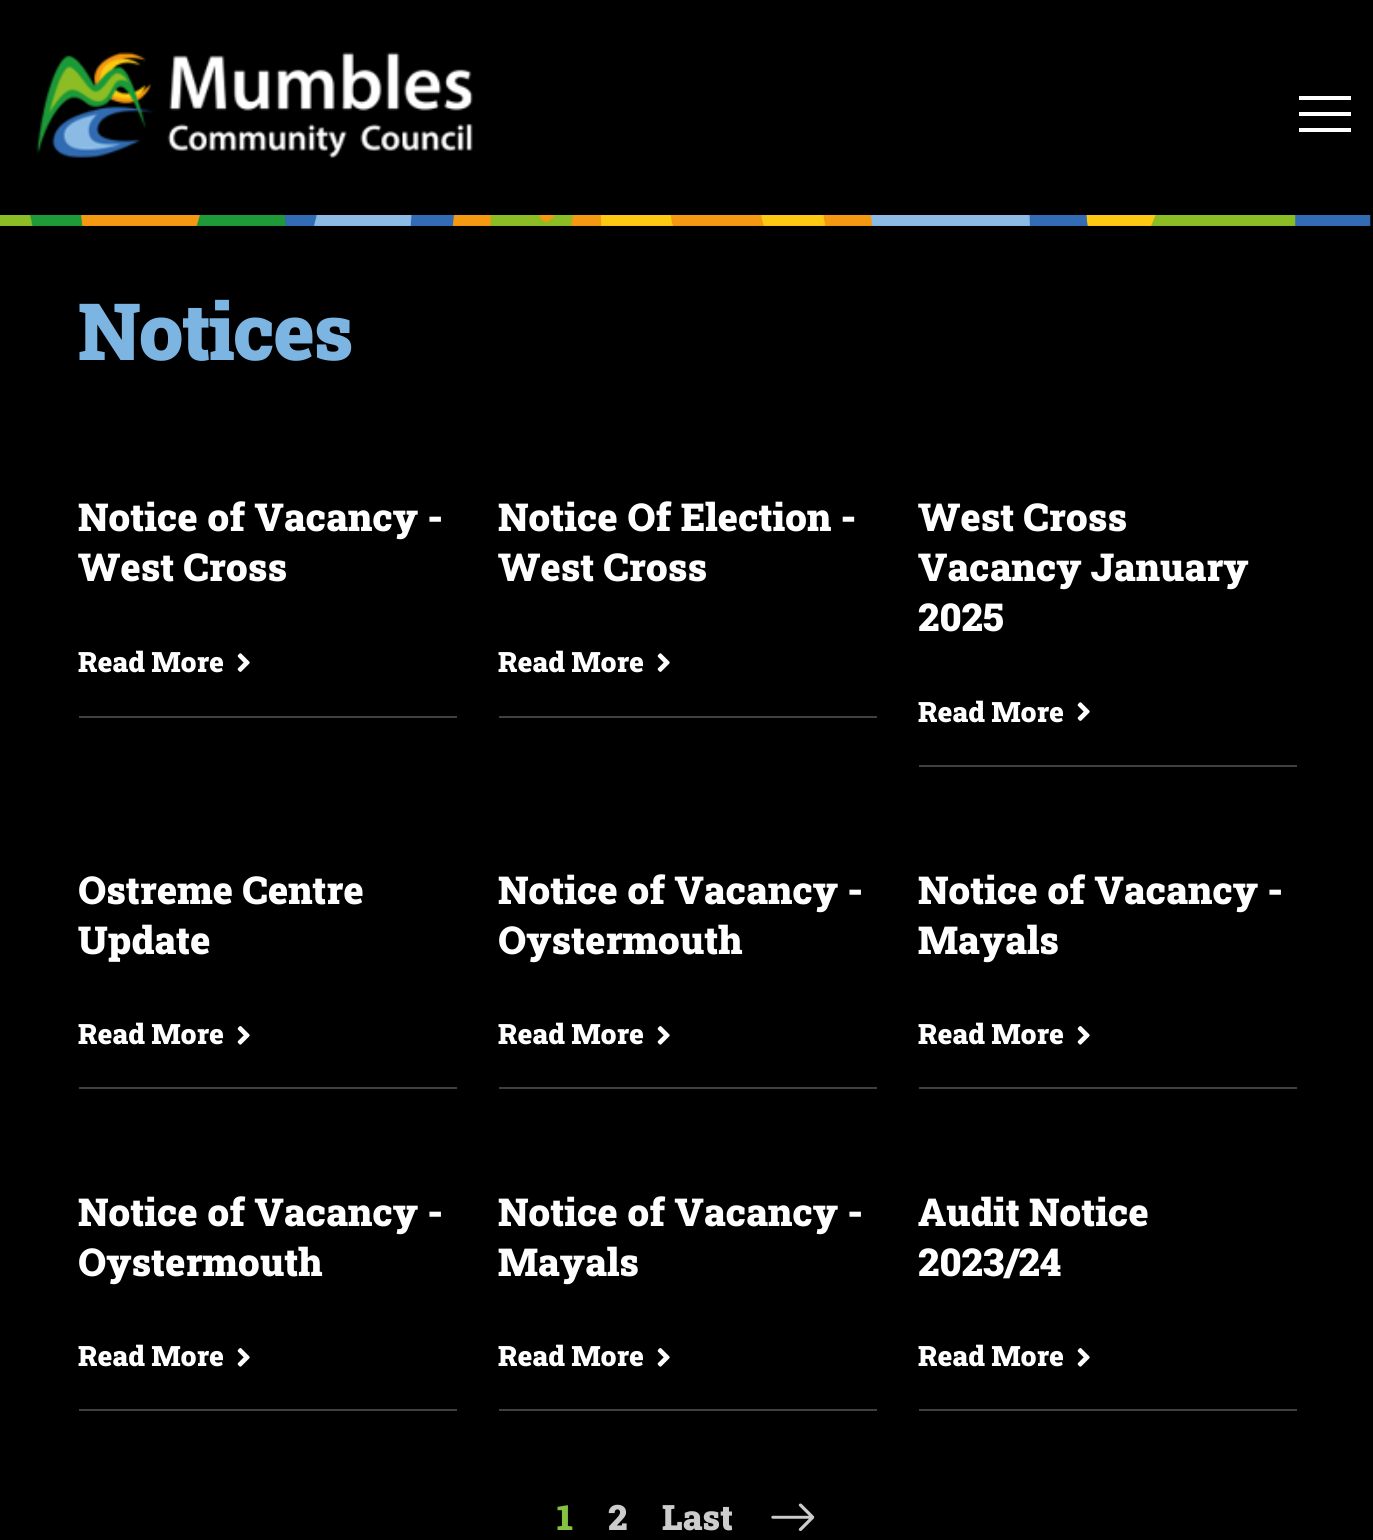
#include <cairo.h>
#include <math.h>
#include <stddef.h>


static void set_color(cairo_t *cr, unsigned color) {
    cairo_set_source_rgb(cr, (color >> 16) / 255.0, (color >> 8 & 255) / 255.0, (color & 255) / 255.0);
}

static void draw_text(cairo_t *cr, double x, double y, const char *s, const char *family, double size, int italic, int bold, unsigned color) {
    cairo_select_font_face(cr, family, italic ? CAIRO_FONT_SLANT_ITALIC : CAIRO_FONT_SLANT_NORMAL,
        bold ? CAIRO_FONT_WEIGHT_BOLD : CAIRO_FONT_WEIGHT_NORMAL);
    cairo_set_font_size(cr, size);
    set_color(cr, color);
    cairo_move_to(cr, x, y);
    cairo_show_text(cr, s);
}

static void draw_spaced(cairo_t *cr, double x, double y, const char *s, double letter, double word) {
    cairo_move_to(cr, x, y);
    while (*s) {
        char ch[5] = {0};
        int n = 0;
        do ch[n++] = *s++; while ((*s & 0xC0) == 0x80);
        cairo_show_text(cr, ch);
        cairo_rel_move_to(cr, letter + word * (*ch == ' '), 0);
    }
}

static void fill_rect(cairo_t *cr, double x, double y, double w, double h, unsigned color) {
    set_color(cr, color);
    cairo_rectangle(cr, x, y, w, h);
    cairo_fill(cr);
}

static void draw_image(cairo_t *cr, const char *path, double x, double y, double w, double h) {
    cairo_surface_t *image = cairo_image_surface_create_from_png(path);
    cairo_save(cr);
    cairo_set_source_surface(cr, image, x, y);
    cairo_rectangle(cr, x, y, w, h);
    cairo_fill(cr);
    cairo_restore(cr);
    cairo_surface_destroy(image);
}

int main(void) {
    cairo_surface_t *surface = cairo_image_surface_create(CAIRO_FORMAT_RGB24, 1373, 1540);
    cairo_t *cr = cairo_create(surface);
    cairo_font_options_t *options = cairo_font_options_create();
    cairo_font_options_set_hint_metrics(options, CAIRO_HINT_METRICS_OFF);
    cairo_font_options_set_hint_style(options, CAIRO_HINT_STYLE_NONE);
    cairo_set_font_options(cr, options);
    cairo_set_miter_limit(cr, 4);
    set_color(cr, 0x000000);
    cairo_paint(cr);
    draw_image(cr, "assets/img1.png", 36, 52, 437, 106);
    fill_rect(cr, 1299, 96, 52, 4, 0xFFFFFF);
    fill_rect(cr, 1299, 112, 52, 4, 0xFFFFFF);
    fill_rect(cr, 1299, 128, 52, 4, 0xFFFFFF);
    draw_image(cr, "assets/img2.png", 0, 215, 1371, 11);
    cairo_select_font_face(cr, "Roboto Slab Black", CAIRO_FONT_SLANT_NORMAL, CAIRO_FONT_WEIGHT_NORMAL);
    cairo_set_font_size(cr, 79);
    set_color(cr, 0x7CB4E2);
    draw_spaced(cr, 78, 360, "Notices", -1.75, 0);
    draw_text(cr, 78, 531, "Notice of Vacancy -", "Roboto Slab Black", 38.5, 0, 0, 0xFFFFFF);
    draw_text(cr, 78, 581, "West Cross", "Roboto Slab Black", 38.5, 0, 0, 0xFFFFFF);
    draw_text(cr, 78, 672, "Read More", "Roboto Slab Black", 28, 0, 0, 0xFFFFFF);
    draw_image(cr, "assets/img3.png", 237, 653, 13, 19);
    fill_rect(cr, 79, 716, 378, 2, 0x404040);
    draw_text(cr, 498, 531, "Notice Of Election -", "Roboto Slab Black", 38.5, 0, 0, 0xFFFFFF);
    draw_text(cr, 498, 581, "West Cross", "Roboto Slab Black", 38.5, 0, 0, 0xFFFFFF);
    draw_text(cr, 498, 672, "Read More", "Roboto Slab Black", 28, 0, 0, 0xFFFFFF);
    draw_image(cr, "assets/img3.png", 657, 653, 13, 19);
    fill_rect(cr, 499, 716, 378, 2, 0x404040);
    draw_text(cr, 918, 531, "West Cross", "Roboto Slab Black", 38.5, 0, 0, 0xFFFFFF);
    draw_text(cr, 918, 581, "Vacancy January", "Roboto Slab Black", 38.5, 0, 0, 0xFFFFFF);
    draw_text(cr, 918, 631, "2025", "Roboto Slab Black", 38.5, 0, 0, 0xFFFFFF);
    draw_text(cr, 918, 722, "Read More", "Roboto Slab Black", 28, 0, 0, 0xFFFFFF);
    draw_image(cr, "assets/img3.png", 1077, 702, 13, 19);
    fill_rect(cr, 919, 765, 378, 2, 0x404040);
    draw_text(cr, 78, 904, "Ostreme Centre", "Roboto Slab Black", 38.5, 0, 0, 0xFFFFFF);
    draw_text(cr, 78, 954, "Update", "Roboto Slab Black", 38.5, 0, 0, 0xFFFFFF);
    draw_text(cr, 78, 1044, "Read More", "Roboto Slab Black", 28, 0, 0, 0xFFFFFF);
    draw_image(cr, "assets/img4.png", 237, 1026, 13, 19);
    fill_rect(cr, 79, 1087, 378, 2, 0x404040);
    draw_text(cr, 498, 904, "Notice of Vacancy -", "Roboto Slab Black", 38.5, 0, 0, 0xFFFFFF);
    draw_text(cr, 498, 954, "Oystermouth", "Roboto Slab Black", 38.5, 0, 0, 0xFFFFFF);
    draw_text(cr, 498, 1044, "Read More", "Roboto Slab Black", 28, 0, 0, 0xFFFFFF);
    draw_image(cr, "assets/img4.png", 657, 1026, 13, 19);
    fill_rect(cr, 499, 1087, 378, 2, 0x404040);
    draw_text(cr, 918, 904, "Notice of Vacancy -", "Roboto Slab Black", 38.5, 0, 0, 0xFFFFFF);
    draw_text(cr, 918, 954, "Mayals", "Roboto Slab Black", 38.5, 0, 0, 0xFFFFFF);
    draw_text(cr, 918, 1044, "Read More", "Roboto Slab Black", 28, 0, 0, 0xFFFFFF);
    draw_image(cr, "assets/img4.png", 1077, 1026, 13, 19);
    fill_rect(cr, 919, 1087, 378, 2, 0x404040);
    draw_text(cr, 78, 1226, "Notice of Vacancy -", "Roboto Slab Black", 38.5, 0, 0, 0xFFFFFF);
    draw_text(cr, 78, 1276, "Oystermouth", "Roboto Slab Black", 38.5, 0, 0, 0xFFFFFF);
    draw_text(cr, 78, 1366, "Read More", "Roboto Slab Black", 28, 0, 0, 0xFFFFFF);
    draw_image(cr, "assets/img4.png", 237, 1348, 13, 19);
    fill_rect(cr, 79, 1409, 378, 2, 0x404040);
    draw_text(cr, 498, 1226, "Notice of Vacancy -", "Roboto Slab Black", 38.5, 0, 0, 0xFFFFFF);
    draw_text(cr, 498, 1276, "Mayals", "Roboto Slab Black", 38.5, 0, 0, 0xFFFFFF);
    draw_text(cr, 498, 1366, "Read More", "Roboto Slab Black", 28, 0, 0, 0xFFFFFF);
    draw_image(cr, "assets/img4.png", 657, 1348, 13, 19);
    fill_rect(cr, 499, 1409, 378, 2, 0x404040);
    draw_text(cr, 918, 1226, "Audit Notice", "Roboto Slab Black", 38.5, 0, 0, 0xFFFFFF);
    draw_text(cr, 918, 1276, "2023/24", "Roboto Slab Black", 38.5, 0, 0, 0xFFFFFF);
    draw_text(cr, 918, 1366, "Read More", "Roboto Slab Black", 28, 0, 0, 0xFFFFFF);
    draw_image(cr, "assets/img4.png", 1077, 1348, 13, 19);
    fill_rect(cr, 919, 1409, 378, 2, 0x404040);
    draw_text(cr, 557, 1530, "1", "Roboto Slab Black", 35, 0, 0, 0x84C242);
    draw_text(cr, 608, 1530, "2", "Roboto Slab Black", 35, 0, 0, 0xCCCCCC);
    draw_text(cr, 662, 1530, "Last", "Roboto Slab Black", 35, 0, 0, 0xCCCCCC);
    draw_image(cr, "assets/img5.png", 771, 1503, 44, 28);
    cairo_surface_write_to_png(surface, "output.png");
    cairo_font_options_destroy(options);
    cairo_destroy(cr);
    cairo_surface_destroy(surface);
    return 0;
}
